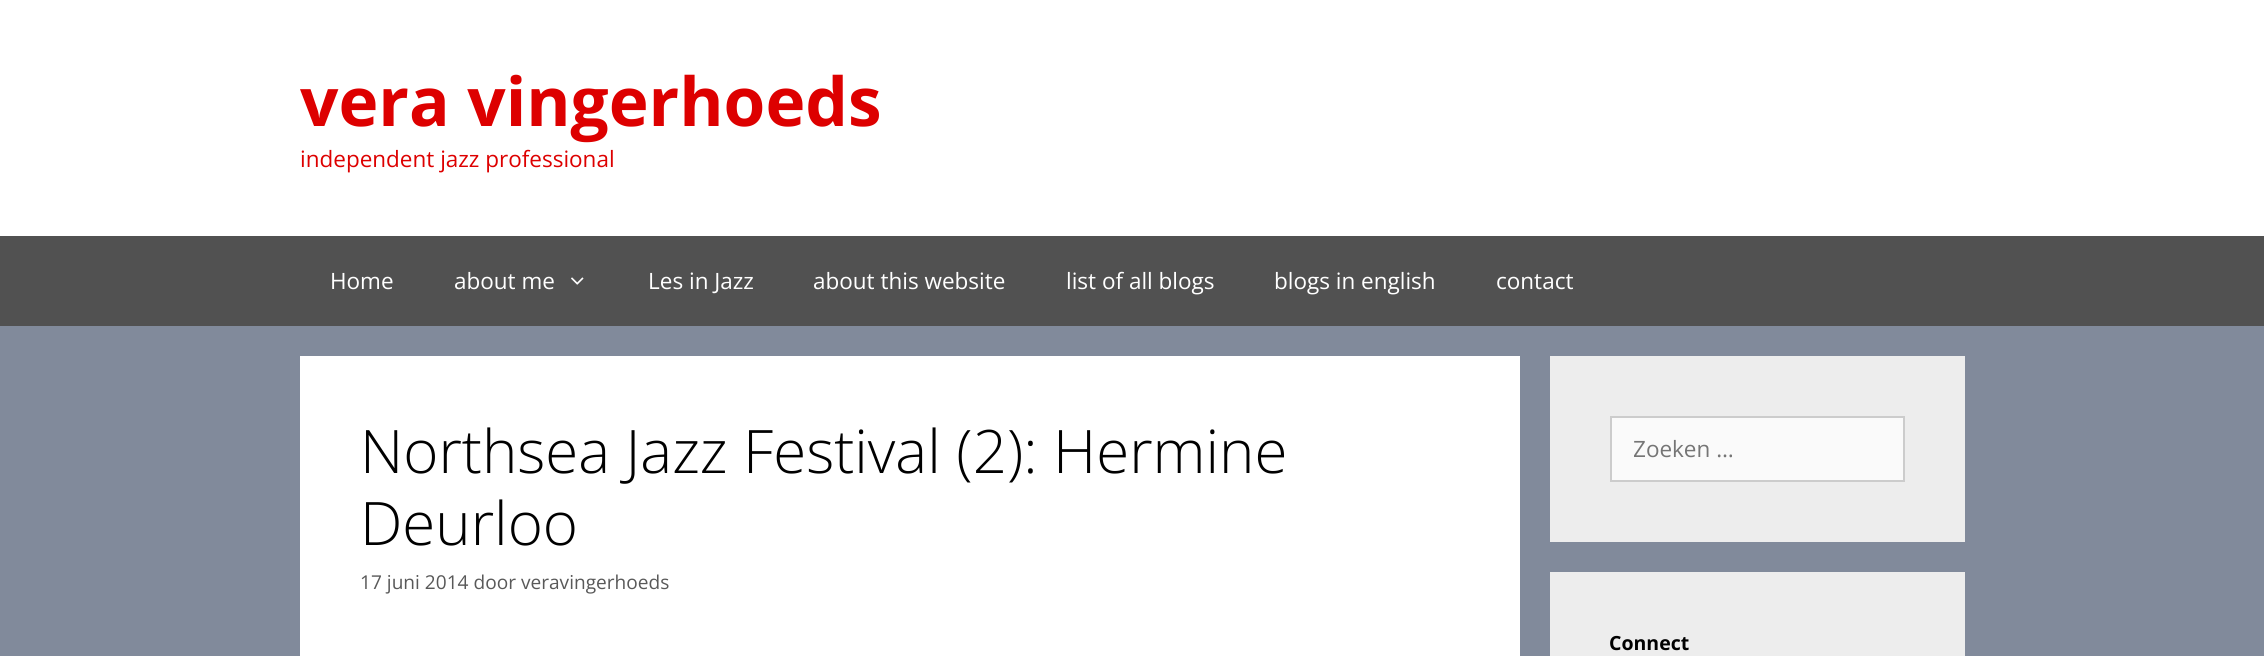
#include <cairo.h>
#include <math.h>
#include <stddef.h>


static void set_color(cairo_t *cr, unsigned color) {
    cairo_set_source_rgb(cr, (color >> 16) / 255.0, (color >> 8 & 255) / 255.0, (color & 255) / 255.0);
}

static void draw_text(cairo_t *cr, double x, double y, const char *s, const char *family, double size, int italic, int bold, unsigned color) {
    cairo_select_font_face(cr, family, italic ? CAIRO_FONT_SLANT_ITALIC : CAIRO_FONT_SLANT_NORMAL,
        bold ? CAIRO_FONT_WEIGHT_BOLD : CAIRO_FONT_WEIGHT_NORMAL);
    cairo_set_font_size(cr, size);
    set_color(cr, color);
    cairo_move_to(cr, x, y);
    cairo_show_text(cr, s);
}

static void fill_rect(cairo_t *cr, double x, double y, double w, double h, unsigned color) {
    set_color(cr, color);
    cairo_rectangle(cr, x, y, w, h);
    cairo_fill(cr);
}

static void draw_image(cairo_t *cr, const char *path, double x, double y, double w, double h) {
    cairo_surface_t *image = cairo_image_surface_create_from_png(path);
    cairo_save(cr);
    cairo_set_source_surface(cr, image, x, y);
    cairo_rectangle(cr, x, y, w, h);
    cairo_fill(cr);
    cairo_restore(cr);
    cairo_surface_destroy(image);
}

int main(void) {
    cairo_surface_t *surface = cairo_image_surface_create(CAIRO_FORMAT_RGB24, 2264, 656);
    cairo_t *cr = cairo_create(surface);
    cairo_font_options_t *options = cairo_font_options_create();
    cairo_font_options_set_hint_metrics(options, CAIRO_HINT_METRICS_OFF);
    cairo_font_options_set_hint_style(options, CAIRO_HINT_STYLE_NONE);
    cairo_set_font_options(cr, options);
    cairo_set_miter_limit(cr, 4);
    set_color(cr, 0x818A9B);
    cairo_paint(cr);
    fill_rect(cr, 0, 0, 2264, 236, 0xFFFFFF);
    draw_text(cr, 300, 126, "vera vingerhoeds", "Open Sans", 67.5, 0, 1, 0xDD0000);
    draw_text(cr, 300, 167, "independent jazz professional", "Open Sans", 22.5, 0, 0, 0xDD0000);
    fill_rect(cr, 0, 236, 2264, 90, 0x515151);
    draw_text(cr, 330, 289, "Home", "Open Sans", 22.5, 0, 0, 0xFFFFFF);
    draw_text(cr, 454, 289, "about me", "Open Sans", 22.5, 0, 0, 0xFFFFFF);
    draw_image(cr, "assets/img1.png", 571, 277, 13, 8);
    draw_text(cr, 648, 289, "Les in Jazz", "Open Sans", 22.5, 0, 0, 0xFFFFFF);
    draw_text(cr, 813, 289, "about this website", "Open Sans", 22.5, 0, 0, 0xFFFFFF);
    draw_text(cr, 1066, 289, "list of all blogs", "Open Sans", 22.5, 0, 0, 0xFFFFFF);
    draw_text(cr, 1274, 289, "blogs in english", "Open Sans", 22.5, 0, 0, 0xFFFFFF);
    draw_text(cr, 1496, 289, "contact", "Open Sans", 22.5, 0, 0, 0xFFFFFF);
    fill_rect(cr, 300, 356, 1220, 300, 0xFFFFFF);
    draw_text(cr, 360, 473, "Northsea Jazz Festival (2): Hermine", "Open Sans Light", 60, 0, 0, 0x000000);
    draw_text(cr, 360, 545, "Deurloo", "Open Sans Light", 60, 0, 0, 0x000000);
    draw_text(cr, 360, 589, "17 juni 2014 door veravingerhoeds", "Open Sans", 19.1, 0, 0, 0x595959);
    fill_rect(cr, 1550, 356, 415, 186, 0xEDEDED);
    set_color(cr, 0xFAFAFA);
    cairo_rectangle(cr, 1611, 417, 293, 64);
    cairo_fill_preserve(cr);
    set_color(cr, 0xCCCCCC);
    cairo_stroke(cr);
    cairo_save(cr);
    cairo_rectangle(cr, 1634, 434, 226, 30);
    cairo_clip(cr);
    draw_text(cr, 1633, 457, "Zoeken …", "Open Sans", 22.5, 0, 0, 0x757575);
    cairo_restore(cr);
    fill_rect(cr, 1550, 572, 415, 84, 0xEDEDED);
    draw_text(cr, 1609, 650, "Connect", "Open Sans", 19.5, 0, 1, 0x000000);
    cairo_surface_write_to_png(surface, "output.png");
    cairo_font_options_destroy(options);
    cairo_destroy(cr);
    cairo_surface_destroy(surface);
    return 0;
}
